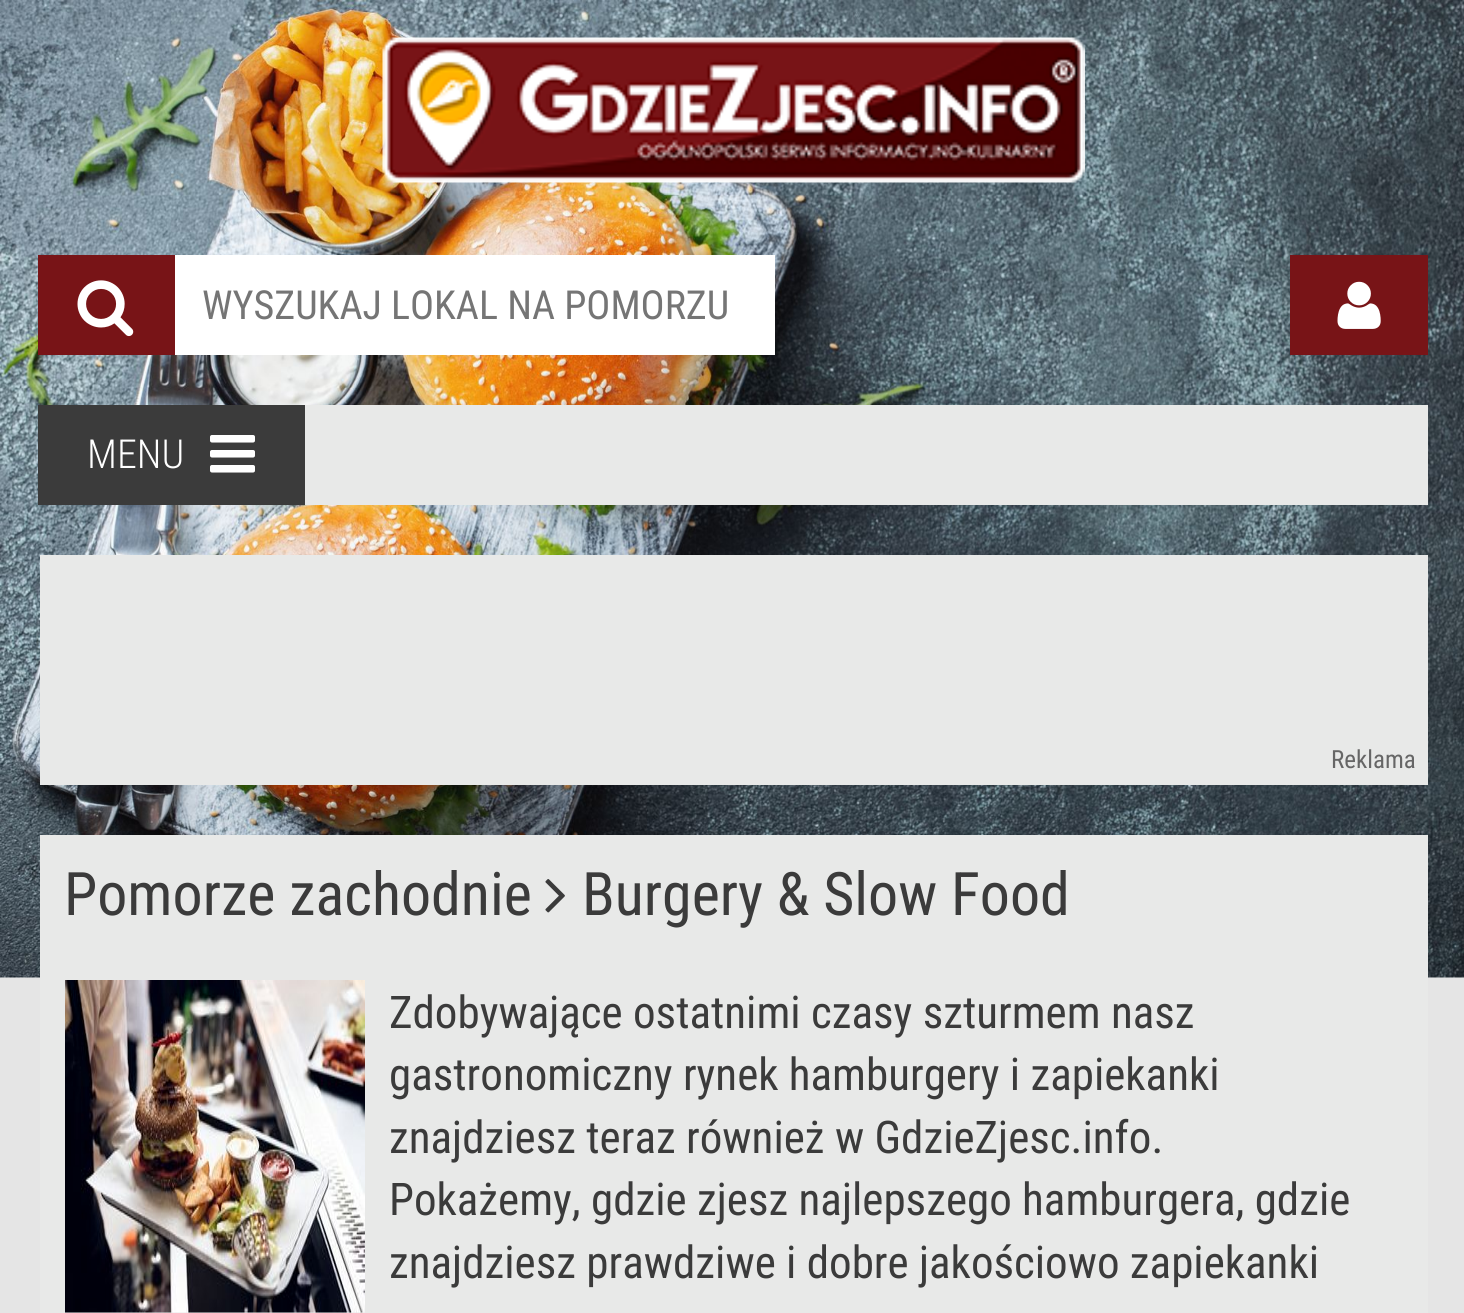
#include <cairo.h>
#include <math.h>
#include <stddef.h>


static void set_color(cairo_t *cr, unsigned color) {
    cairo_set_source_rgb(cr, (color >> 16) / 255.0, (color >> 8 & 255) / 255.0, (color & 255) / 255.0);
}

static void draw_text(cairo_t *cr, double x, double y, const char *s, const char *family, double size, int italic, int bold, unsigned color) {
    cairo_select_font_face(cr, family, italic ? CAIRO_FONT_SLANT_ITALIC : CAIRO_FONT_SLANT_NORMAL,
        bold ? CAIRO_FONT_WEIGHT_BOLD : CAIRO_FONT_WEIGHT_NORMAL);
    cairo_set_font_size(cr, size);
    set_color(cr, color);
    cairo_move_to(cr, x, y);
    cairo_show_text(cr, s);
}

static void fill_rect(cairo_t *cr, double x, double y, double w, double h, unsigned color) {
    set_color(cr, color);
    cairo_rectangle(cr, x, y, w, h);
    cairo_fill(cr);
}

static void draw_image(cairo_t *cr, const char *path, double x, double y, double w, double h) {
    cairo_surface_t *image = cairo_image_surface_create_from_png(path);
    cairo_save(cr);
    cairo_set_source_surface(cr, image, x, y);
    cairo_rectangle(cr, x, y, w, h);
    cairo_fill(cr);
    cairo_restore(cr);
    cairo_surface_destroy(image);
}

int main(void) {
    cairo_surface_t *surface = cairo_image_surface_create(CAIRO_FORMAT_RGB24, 1464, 1313);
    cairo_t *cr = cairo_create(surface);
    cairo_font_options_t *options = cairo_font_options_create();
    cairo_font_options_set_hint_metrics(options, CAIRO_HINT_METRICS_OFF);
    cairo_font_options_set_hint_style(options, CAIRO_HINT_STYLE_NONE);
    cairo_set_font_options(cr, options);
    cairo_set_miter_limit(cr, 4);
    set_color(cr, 0xE5E5E5);
    cairo_paint(cr);
    draw_image(cr, "assets/img1.png", 0, 0, 1464, 978);
    draw_image(cr, "assets/img2.png", 382, 37, 703, 146);
    fill_rect(cr, 38, 255, 137, 100, 0x781417);
    draw_image(cr, "assets/img3.png", 77, 280, 57, 57);
    fill_rect(cr, 175, 255, 600, 100, 0xFFFFFF);
    draw_text(cr, 202, 319, "WYSZUKAJ LOKAL NA POMORZU", "Roboto Condensed", 40, 0, 0, 0x757575);
    fill_rect(cr, 1290, 255, 138, 100, 0x781417);
    draw_image(cr, "assets/img4.png", 1337, 281, 44, 48);
    fill_rect(cr, 305, 405, 1123, 100, 0xE8E9E8);
    fill_rect(cr, 38, 405, 267, 100, 0x3B3B3B);
    draw_text(cr, 87, 468, "MENU", "Roboto Condensed Light", 40, 0, 0, 0xFFFFFF);
    draw_image(cr, "assets/img5.png", 210, 435, 45, 38);
    fill_rect(cr, 40, 555, 1388, 230, 0xE8E9E8);
    draw_text(cr, 1331, 768, "Reklama", "Roboto Condensed", 25, 0, 0, 0x666666);
    fill_rect(cr, 40, 835, 1388, 478, 0xE8E9E8);
    draw_text(cr, 64, 915, "Pomorze zachodnie", "Roboto Condensed", 60, 0, 0, 0x3B3B3B);
    draw_image(cr, "assets/img6.png", 545, 879, 20, 34);
    draw_text(cr, 582, 915, "Burgery & Slow Food", "Roboto Condensed", 60, 0, 0, 0x3B3B3B);
    draw_image(cr, "assets/img7.png", 65, 980, 300, 333);
    draw_text(cr, 389, 1028, "Zdobywające ostatnimi czasy szturmem nasz", "Roboto Condensed", 45, 0, 0, 0x3B3B3B);
    draw_text(cr, 389, 1090, "gastronomiczny rynek hamburgery i zapiekanki", "Roboto Condensed", 45, 0, 0, 0x3B3B3B);
    draw_text(cr, 389, 1153, "znajdziesz teraz również w GdzieZjesc.info.", "Roboto Condensed", 45, 0, 0, 0x3B3B3B);
    draw_text(cr, 389, 1215, "Pokażemy, gdzie zjesz najlepszego hamburgera, gdzie", "Roboto Condensed", 45, 0, 0, 0x3B3B3B);
    draw_text(cr, 389, 1278, "znajdziesz prawdziwe i dobre jakościowo zapiekanki", "Roboto Condensed", 45, 0, 0, 0x3B3B3B);
    cairo_surface_write_to_png(surface, "output.png");
    cairo_font_options_destroy(options);
    cairo_destroy(cr);
    cairo_surface_destroy(surface);
    return 0;
}
